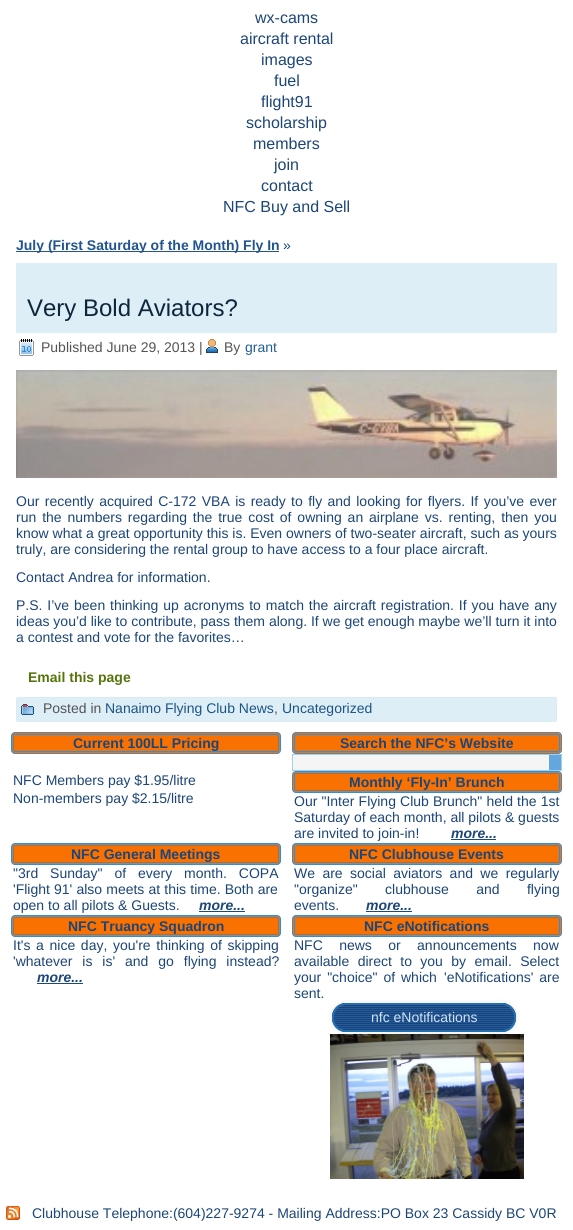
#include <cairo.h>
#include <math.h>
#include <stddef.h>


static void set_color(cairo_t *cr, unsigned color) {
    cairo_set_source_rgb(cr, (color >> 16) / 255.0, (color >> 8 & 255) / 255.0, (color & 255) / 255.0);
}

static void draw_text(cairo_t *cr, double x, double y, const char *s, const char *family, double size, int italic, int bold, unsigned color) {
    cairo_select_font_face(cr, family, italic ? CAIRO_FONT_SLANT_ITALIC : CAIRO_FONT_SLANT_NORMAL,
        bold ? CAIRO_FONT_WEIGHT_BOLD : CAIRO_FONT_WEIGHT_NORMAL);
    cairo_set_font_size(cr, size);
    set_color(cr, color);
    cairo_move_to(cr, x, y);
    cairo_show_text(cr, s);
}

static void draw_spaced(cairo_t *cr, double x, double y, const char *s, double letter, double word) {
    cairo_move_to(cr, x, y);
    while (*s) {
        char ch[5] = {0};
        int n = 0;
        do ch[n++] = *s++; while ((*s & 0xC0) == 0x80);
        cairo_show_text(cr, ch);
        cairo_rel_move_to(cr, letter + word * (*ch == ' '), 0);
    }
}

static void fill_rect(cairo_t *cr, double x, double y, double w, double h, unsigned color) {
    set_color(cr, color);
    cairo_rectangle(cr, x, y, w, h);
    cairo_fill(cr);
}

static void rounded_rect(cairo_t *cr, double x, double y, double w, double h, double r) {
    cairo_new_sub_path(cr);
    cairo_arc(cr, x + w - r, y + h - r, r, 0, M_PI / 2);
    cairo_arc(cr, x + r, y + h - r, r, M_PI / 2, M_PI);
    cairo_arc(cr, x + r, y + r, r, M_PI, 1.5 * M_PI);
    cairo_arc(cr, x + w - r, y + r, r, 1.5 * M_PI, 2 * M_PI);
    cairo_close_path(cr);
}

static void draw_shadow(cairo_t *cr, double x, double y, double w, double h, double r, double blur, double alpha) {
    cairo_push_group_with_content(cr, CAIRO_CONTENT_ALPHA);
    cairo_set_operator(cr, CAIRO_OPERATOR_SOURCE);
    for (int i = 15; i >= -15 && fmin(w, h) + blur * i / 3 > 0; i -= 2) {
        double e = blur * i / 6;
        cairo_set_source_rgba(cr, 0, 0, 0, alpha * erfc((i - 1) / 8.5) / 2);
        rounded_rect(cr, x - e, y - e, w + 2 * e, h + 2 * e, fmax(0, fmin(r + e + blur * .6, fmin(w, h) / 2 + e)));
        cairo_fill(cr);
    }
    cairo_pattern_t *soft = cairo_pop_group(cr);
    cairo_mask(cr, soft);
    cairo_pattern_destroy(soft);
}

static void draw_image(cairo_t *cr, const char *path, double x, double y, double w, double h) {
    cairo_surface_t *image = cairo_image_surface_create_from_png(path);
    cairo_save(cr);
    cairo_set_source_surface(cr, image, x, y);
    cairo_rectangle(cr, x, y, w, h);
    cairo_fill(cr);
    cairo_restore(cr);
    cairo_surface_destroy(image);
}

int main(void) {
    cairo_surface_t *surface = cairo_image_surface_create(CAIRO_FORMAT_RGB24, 573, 1230);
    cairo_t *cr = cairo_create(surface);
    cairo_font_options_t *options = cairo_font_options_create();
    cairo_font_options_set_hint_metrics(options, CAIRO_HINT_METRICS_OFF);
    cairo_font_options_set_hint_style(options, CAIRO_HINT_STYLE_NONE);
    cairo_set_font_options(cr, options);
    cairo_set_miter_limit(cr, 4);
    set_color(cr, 0xFFFFFF);
    cairo_paint(cr);
    draw_text(cr, 255, 23, "wx-cams", "Liberation Sans", 16, 0, 0, 0x1C4578);
    draw_text(cr, 240, 44, "aircraft rental", "Liberation Sans", 16, 0, 0, 0x1C4578);
    draw_text(cr, 261, 65, "images", "Liberation Sans", 16, 0, 0, 0x1C4578);
    draw_text(cr, 274, 86, "fuel", "Liberation Sans", 16, 0, 0, 0x1C4578);
    draw_text(cr, 261, 107, "flight91", "Liberation Sans", 16, 0, 0, 0x1C4578);
    draw_text(cr, 246, 128, "scholarship", "Liberation Sans", 16, 0, 0, 0x1C4578);
    draw_text(cr, 253, 149, "members", "Liberation Sans", 16, 0, 0, 0x1C4578);
    draw_text(cr, 274, 170, "join", "Liberation Sans", 16, 0, 0, 0x1C4578);
    draw_text(cr, 261, 191, "contact", "Liberation Sans", 16, 0, 0, 0x1C4578);
    draw_text(cr, 223, 212, "NFC Buy and Sell", "Liberation Sans", 16, 0, 0, 0x1C4578);
    fill_rect(cr, 16, 251, 263, 1, 0x225491);
    draw_text(cr, 16, 250, "July (First Saturday of the Month) Fly In", "Liberation Sans", 14, 0, 1, 0x225491);
    draw_text(cr, 283, 250, "»", "Liberation Sans", 14, 0, 0, 0x1C4578);
    fill_rect(cr, 16, 263, 541, 70, 0xDDEEF7);
    draw_text(cr, 27, 316, "Very Bold Aviators?", "Liberation Sans", 24, 0, 0, 0x0C263B);
    draw_image(cr, "assets/img1.png", 19, 339, 15, 17);
    draw_text(cr, 41, 352, "Published June 29, 2013 |", "Liberation Sans", 14, 0, 0, 0x545454);
    draw_image(cr, "assets/img2.png", 206, 339, 12, 14);
    draw_text(cr, 224, 352, "By", "Liberation Sans", 14, 0, 0, 0x545454);
    draw_text(cr, 245, 352, "grant", "Liberation Sans", 14, 0, 0, 0x1F5F93);
    draw_image(cr, "assets/img3.png", 16, 370, 541, 108);
    set_color(cr, 0x1C4578);
    draw_spaced(cr, 16, 506, "Our recently acquired C-172 VBA is ready to fly and looking for flyers. If you’ve ever", 0, 1.5);
    draw_spaced(cr, 16, 522, "run the numbers regarding the true cost of owning an airplane vs. renting, then you", 0, 2);
    draw_text(cr, 16, 538, "know what a great opportunity this is. Even owners of two-seater aircraft, such as yours", "Liberation Sans", 14, 0, 0, 0x1C4578);
    draw_text(cr, 16, 554, "truly, are considering the rental group to have access to a four place aircraft.", "Liberation Sans", 14, 0, 0, 0x1C4578);
    draw_text(cr, 16, 582, "Contact Andrea for information.", "Liberation Sans", 14, 0, 0, 0x1C4578);
    draw_spaced(cr, 16, 610, "P.S. I’ve been thinking up acronyms to match the aircraft registration. If you have any", 0, 1);
    draw_text(cr, 16, 626, "ideas you’d like to contribute, pass them along. If we get enough maybe we’ll turn it into", "Liberation Sans", 14, 0, 0, 0x1C4578);
    draw_text(cr, 16, 642, "a contest and vote for the favorites…", "Liberation Sans", 14, 0, 0, 0x1C4578);
    draw_text(cr, 28, 682, "Email this page", "Liberation Sans", 14, 0, 1, 0x55750C);
    set_color(cr, 0xDDEEF7);
    rounded_rect(cr, 16, 697, 541, 25, 2);
    cairo_fill(cr);
    cairo_rectangle(cr, 16.5, 697.5, 540, 24);
    cairo_set_source_rgba(cr, 0.78, 0.78, 0.78, 0.07);
    cairo_set_line_width(cr, 1);
    cairo_stroke(cr);
    draw_image(cr, "assets/img4.png", 21, 704, 13, 11);
    draw_text(cr, 43, 713, "Posted in", "Liberation Sans", 14, 0, 0, 0x545454);
    draw_text(cr, 105, 713, "Nanaimo Flying Club News", "Liberation Sans", 14, 0, 0, 0x1C5482);
    draw_text(cr, 274, 713, ",", "Liberation Sans", 14, 0, 0, 0x545454);
    draw_text(cr, 282, 713, "Uncategorized", "Liberation Sans", 14, 0, 0, 0x1C5482);
    set_color(cr, 0xF97101);
    rounded_rect(cr, 11.5, 732.5, 269, 21, 3.5);
    cairo_fill_preserve(cr);
    set_color(cr, 0x358DD4);
    cairo_stroke(cr);
    rounded_rect(cr, 13.5, 734.5, 265, 17, 1.5);
    cairo_stroke(cr);
    draw_text(cr, 73, 748, "Current 100LL Pricing", "Liberation Sans", 14, 0, 1, 0x1C4578);
    draw_text(cr, 13, 785, "NFC Members pay $1.95/litre", "Liberation Sans", 14, 0, 0, 0x1C4578);
    draw_text(cr, 13, 803, "Non-members pay $2.15/litre", "Liberation Sans", 14, 0, 0, 0x1C4578);
    set_color(cr, 0xF97101);
    rounded_rect(cr, 292.5, 732.5, 269, 21, 3.5);
    cairo_fill_preserve(cr);
    set_color(cr, 0x358DD4);
    cairo_stroke(cr);
    rounded_rect(cr, 294.5, 734.5, 265, 17, 1.5);
    cairo_stroke(cr);
    draw_text(cr, 340, 748, "Search the NFC’s Website", "Liberation Sans", 14, 0, 1, 0x1C4578);
    fill_rect(cr, 293, 755, 256, 15, 0xF5F5F5);
    cairo_rectangle(cr, 292.5, 754.5, 269, 16);
    set_color(cr, 0xA1CFE8);
    cairo_stroke(cr);
    fill_rect(cr, 549, 755, 12, 15, 0x63A7DE);
    set_color(cr, 0xF97101);
    rounded_rect(cr, 292.5, 771.5, 269, 21, 3.5);
    cairo_fill_preserve(cr);
    set_color(cr, 0x358DD4);
    cairo_stroke(cr);
    rounded_rect(cr, 294.5, 773.5, 265, 17, 1.5);
    cairo_stroke(cr);
    draw_text(cr, 349, 787, "Monthly ‘Fly-In’ Brunch", "Liberation Sans", 14, 0, 1, 0x1C4578);
    cairo_select_font_face(cr, "Liberation Sans", CAIRO_FONT_SLANT_NORMAL, CAIRO_FONT_WEIGHT_NORMAL);
    draw_spaced(cr, 294, 806, "Our \"Inter Flying Club Brunch\" held the 1st", 0, 0.25);
    draw_text(cr, 294, 822, "Saturday of each month, all pilots & guests", "Liberation Sans", 14, 0, 0, 0x1C4578);
    draw_text(cr, 294, 838, "are invited to join-in!", "Liberation Sans", 14, 0, 0, 0x1C4578);
    draw_text(cr, 451, 838, "more...", "Liberation Sans", 14, 1, 1, 0x1C4578);
    fill_rect(cr, 451, 839, 45, 1, 0x1C487D);
    set_color(cr, 0xF97101);
    rounded_rect(cr, 11.5, 843.5, 269, 21, 3.5);
    cairo_fill_preserve(cr);
    set_color(cr, 0x358DD4);
    cairo_stroke(cr);
    rounded_rect(cr, 13.5, 845.5, 265, 17, 1.5);
    cairo_stroke(cr);
    draw_text(cr, 71, 859, "NFC General Meetings", "Liberation Sans", 14, 0, 1, 0x1C4578);
    cairo_select_font_face(cr, "Liberation Sans", CAIRO_FONT_SLANT_NORMAL, CAIRO_FONT_WEIGHT_NORMAL);
    draw_spaced(cr, 13, 878, "\"3rd Sunday\" of every month. COPA", 0, 8);
    draw_spaced(cr, 13, 894, "'Flight 91' also meets at this time. Both are", 0, 0.25);
    draw_text(cr, 13, 910, "open to all pilots & Guests.", "Liberation Sans", 14, 0, 0, 0x1C4578);
    draw_text(cr, 199, 910, "more...", "Liberation Sans", 14, 1, 1, 0x1C4578);
    fill_rect(cr, 199, 911, 46, 1, 0x1C487D);
    set_color(cr, 0xF97101);
    rounded_rect(cr, 292.5, 843.5, 269, 21, 3.5);
    cairo_fill_preserve(cr);
    set_color(cr, 0x358DD4);
    cairo_stroke(cr);
    rounded_rect(cr, 294.5, 845.5, 265, 17, 1.5);
    cairo_stroke(cr);
    draw_text(cr, 349, 859, "NFC Clubhouse Events", "Liberation Sans", 14, 0, 1, 0x1C4578);
    cairo_select_font_face(cr, "Liberation Sans", CAIRO_FONT_SLANT_NORMAL, CAIRO_FONT_WEIGHT_NORMAL);
    draw_spaced(cr, 294, 878, "We are social aviators and we regularly", 0, 3.5);
    draw_spaced(cr, 294, 894, "\"organize\" clubhouse and flying", 0, 23.5);
    draw_text(cr, 294, 910, "events.", "Liberation Sans", 14, 0, 0, 0x1C4578);
    draw_text(cr, 366, 910, "more...", "Liberation Sans", 14, 1, 1, 0x1C4578);
    fill_rect(cr, 366, 911, 46, 1, 0x1C487D);
    set_color(cr, 0xF97101);
    rounded_rect(cr, 11.5, 915.5, 269, 21, 3.5);
    cairo_fill_preserve(cr);
    set_color(cr, 0x358DD4);
    cairo_stroke(cr);
    rounded_rect(cr, 13.5, 917.5, 265, 17, 1.5);
    cairo_stroke(cr);
    draw_text(cr, 68, 931, "NFC Truancy Squadron", "Liberation Sans", 14, 0, 1, 0x1C4578);
    cairo_select_font_face(cr, "Liberation Sans", CAIRO_FONT_SLANT_NORMAL, CAIRO_FONT_WEIGHT_NORMAL);
    draw_spaced(cr, 13, 950, "It's a nice day, you're thinking of skipping", 0, 1.75);
    draw_spaced(cr, 13, 966, "'whatever is is' and go flying instead?", 0, 6);
    draw_text(cr, 37, 982, "more...", "Liberation Sans", 14, 1, 1, 0x1C4578);
    fill_rect(cr, 37, 983, 46, 1, 0x1C487D);
    set_color(cr, 0xF97101);
    rounded_rect(cr, 292.5, 915.5, 269, 21, 3.5);
    cairo_fill_preserve(cr);
    set_color(cr, 0x358DD4);
    cairo_stroke(cr);
    rounded_rect(cr, 294.5, 917.5, 265, 17, 1.5);
    cairo_stroke(cr);
    draw_text(cr, 364, 931, "NFC eNotifications", "Liberation Sans", 14, 0, 1, 0x1C4578);
    cairo_select_font_face(cr, "Liberation Sans", CAIRO_FONT_SLANT_NORMAL, CAIRO_FONT_WEIGHT_NORMAL);
    draw_spaced(cr, 294, 950, "NFC news or announcements now", 0, 12.5);
    draw_spaced(cr, 294, 966, "available direct to you by email. Select", 0, 4.5);
    draw_spaced(cr, 294, 982, "your \"choice\" of which", 0, 2);
    draw_spaced(cr, 444, 982, "'eNotifications' are", 0, 2);
    draw_text(cr, 294, 998, "sent.", "Liberation Sans", 14, 0, 0, 0x1C4578);
    set_color(cr, 0x000000);
    draw_shadow(cr, 330, 1001, 188, 33, 16, 1.5, 0.05);
    set_color(cr, 0x225491);
    rounded_rect(cr, 332, 1003, 184, 29, 14);
    cairo_fill(cr);
    draw_image(cr, "assets/img5.png", 332, 1003, 184, 29);
    rounded_rect(cr, 333, 1004, 182, 27, 13);
    set_color(cr, 0x256FAD);
    cairo_set_line_width(cr, 2);
    cairo_stroke(cr);
    draw_text(cr, 371, 1022, "nfc eNotifications", "Liberation Sans", 14, 0, 0, 0xCDE2F4);
    draw_image(cr, "assets/img6.png", 330, 1034, 194, 145);
    draw_image(cr, "assets/img7.png", 6, 1206, 14, 14);
    draw_text(cr, 32, 1218, "Clubhouse Telephone:(604)227-9274 - Mailing Address:PO Box 23 Cassidy BC V0R", "Liberation Sans", 14, 0, 0, 0x1C4578);
    cairo_surface_write_to_png(surface, "output.png");
    cairo_font_options_destroy(options);
    cairo_destroy(cr);
    cairo_surface_destroy(surface);
    return 0;
}
